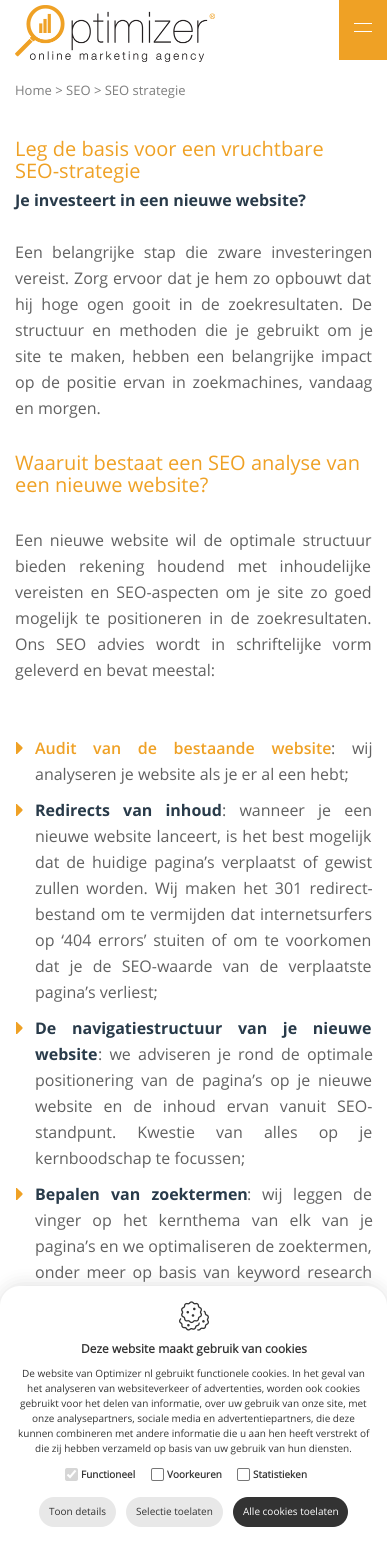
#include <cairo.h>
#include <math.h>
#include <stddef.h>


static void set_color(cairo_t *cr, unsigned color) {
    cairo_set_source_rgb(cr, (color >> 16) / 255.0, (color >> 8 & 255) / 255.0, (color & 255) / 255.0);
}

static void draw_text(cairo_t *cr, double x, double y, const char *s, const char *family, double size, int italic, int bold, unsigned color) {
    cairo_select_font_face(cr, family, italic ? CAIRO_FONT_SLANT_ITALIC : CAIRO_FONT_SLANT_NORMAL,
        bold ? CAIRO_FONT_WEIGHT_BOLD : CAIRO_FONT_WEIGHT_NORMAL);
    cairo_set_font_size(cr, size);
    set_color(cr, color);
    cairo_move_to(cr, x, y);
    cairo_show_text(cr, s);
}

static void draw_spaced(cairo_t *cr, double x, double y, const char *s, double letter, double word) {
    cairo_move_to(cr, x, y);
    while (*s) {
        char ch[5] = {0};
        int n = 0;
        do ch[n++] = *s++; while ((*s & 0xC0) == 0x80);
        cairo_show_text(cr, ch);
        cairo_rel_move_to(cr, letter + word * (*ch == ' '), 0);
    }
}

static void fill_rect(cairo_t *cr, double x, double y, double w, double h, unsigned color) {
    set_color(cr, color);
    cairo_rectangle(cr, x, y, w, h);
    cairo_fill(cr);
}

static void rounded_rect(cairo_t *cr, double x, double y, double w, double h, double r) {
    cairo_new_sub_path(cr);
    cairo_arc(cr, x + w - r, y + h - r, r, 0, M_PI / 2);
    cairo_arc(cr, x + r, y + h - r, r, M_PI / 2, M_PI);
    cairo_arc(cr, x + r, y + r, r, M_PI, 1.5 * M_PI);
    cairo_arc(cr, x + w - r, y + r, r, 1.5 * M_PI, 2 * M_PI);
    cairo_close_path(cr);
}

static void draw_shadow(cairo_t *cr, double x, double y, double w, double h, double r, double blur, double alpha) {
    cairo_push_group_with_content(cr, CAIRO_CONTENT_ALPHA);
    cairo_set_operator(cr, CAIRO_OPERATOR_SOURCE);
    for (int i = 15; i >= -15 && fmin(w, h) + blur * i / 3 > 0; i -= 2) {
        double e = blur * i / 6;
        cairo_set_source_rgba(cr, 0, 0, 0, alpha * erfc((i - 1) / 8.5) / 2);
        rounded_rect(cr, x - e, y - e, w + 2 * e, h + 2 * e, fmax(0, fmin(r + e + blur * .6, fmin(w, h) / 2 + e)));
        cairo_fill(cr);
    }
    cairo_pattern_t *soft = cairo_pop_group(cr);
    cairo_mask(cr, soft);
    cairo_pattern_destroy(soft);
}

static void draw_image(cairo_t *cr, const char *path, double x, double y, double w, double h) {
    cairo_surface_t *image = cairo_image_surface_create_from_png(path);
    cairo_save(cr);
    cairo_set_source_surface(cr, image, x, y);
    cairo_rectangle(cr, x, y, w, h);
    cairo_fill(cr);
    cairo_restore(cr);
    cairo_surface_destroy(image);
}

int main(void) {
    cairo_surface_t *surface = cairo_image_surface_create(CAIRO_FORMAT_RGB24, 387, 1542);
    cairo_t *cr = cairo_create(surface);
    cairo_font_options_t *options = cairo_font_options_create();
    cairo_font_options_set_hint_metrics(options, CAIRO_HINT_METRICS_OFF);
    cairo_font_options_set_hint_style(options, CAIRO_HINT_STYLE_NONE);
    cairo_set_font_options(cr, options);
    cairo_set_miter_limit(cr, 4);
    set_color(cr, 0xFFFFFF);
    cairo_paint(cr);
    draw_image(cr, "assets/img1.png", 15, 5, 200, 57);
    fill_rect(cr, 339, 0, 48, 60, 0xEFA125);
    fill_rect(cr, 354, 23, 18, 1, 0xFFFFFF);
    fill_rect(cr, 354, 31, 18, 1, 0xFFFFFF);
    draw_text(cr, 15, 95, "Home > SEO > SEO strategie", "Open Sans", 13, 0, 0, 0x7E7E7E);
    draw_text(cr, 15, 156, "Leg de basis voor een vruchtbare", "Open Sans", 20, 0, 0, 0xEFA125);
    draw_text(cr, 15, 178, "SEO-strategie", "Open Sans", 20, 0, 0, 0xEFA125);
    draw_text(cr, 15, 206, "Je investeert in een nieuwe website?", "Open Sans", 16, 0, 1, 0x293B4A);
    cairo_select_font_face(cr, "Open Sans", CAIRO_FONT_SLANT_NORMAL, CAIRO_FONT_WEIGHT_NORMAL);
    set_color(cr, 0x616161);
    draw_spaced(cr, 15, 258, "Een belangrijke stap die zware investeringen", 0, 5.25);
    draw_spaced(cr, 15, 284, "vereist. Zorg ervoor dat je hem zo opbouwt dat", 0, 0.75);
    draw_spaced(cr, 15, 310, "hij hoge ogen gooit in de zoekresultaten. De", 0, 4.25);
    draw_spaced(cr, 15, 336, "structuur en methoden die je gebruikt om je", 0, 4);
    draw_spaced(cr, 15, 362, "site te maken, hebben een belangrijke impact", 0, 3);
    draw_spaced(cr, 15, 388, "op de positie ervan in zoekmachines, vandaag", 0, 2.5);
    draw_text(cr, 15, 414, "en morgen.", "Open Sans", 16, 0, 0, 0x616161);
    draw_text(cr, 15, 470, "Waaruit bestaat een SEO analyse van", "Open Sans", 20, 0, 0, 0xEFA125);
    draw_text(cr, 15, 492, "een nieuwe website?", "Open Sans", 20, 0, 0, 0xEFA125);
    cairo_set_font_size(cr, 16);
    set_color(cr, 0x616161);
    draw_spaced(cr, 15, 546, "Een nieuwe website wil de optimale structuur", 0, 3);
    draw_spaced(cr, 15, 572, "bieden rekening houdend met inhoudelijke", 0, 8.5);
    draw_spaced(cr, 15, 598, "vereisten en SEO-aspecten om je site zo goed", 0, 2.75);
    draw_spaced(cr, 15, 624, "mogelijk te positioneren in de zoekresultaten.", 0, 3.25);
    draw_spaced(cr, 15, 650, "Ons SEO advies wordt in schriftelijke vorm", 0, 7);
    draw_text(cr, 15, 676, "geleverd en bevat meestal:", "Open Sans", 16, 0, 0, 0x616161);
    draw_image(cr, "assets/img2.png", 16, 742, 7, 12);
    cairo_select_font_face(cr, "Open Sans SemiBold", CAIRO_FONT_SLANT_NORMAL, CAIRO_FONT_WEIGHT_NORMAL);
    set_color(cr, 0xEFA125);
    draw_spaced(cr, 35, 754, "Audit van de bestaande website", 0, 12.5);
    cairo_select_font_face(cr, "Open Sans", CAIRO_FONT_SLANT_NORMAL, CAIRO_FONT_WEIGHT_NORMAL);
    set_color(cr, 0x616161);
    draw_spaced(cr, 331, 754, ": wij", 0, 12.5);
    draw_text(cr, 35, 780, "analyseren je website als je er al een hebt;", "Open Sans", 16, 0, 0, 0x616161);
    draw_image(cr, "assets/img2.png", 16, 804, 7, 12);
    cairo_select_font_face(cr, "Open Sans", CAIRO_FONT_SLANT_NORMAL, CAIRO_FONT_WEIGHT_BOLD);
    set_color(cr, 0x293B4A);
    draw_spaced(cr, 35, 816, "Redirects van inhoud", 0, 9);
    cairo_select_font_face(cr, "Open Sans", CAIRO_FONT_SLANT_NORMAL, CAIRO_FONT_WEIGHT_NORMAL);
    set_color(cr, 0x616161);
    draw_spaced(cr, 222, 816, ": wanneer je een", 0, 9);
    draw_spaced(cr, 35, 842, "nieuwe website lanceert, is het best mogelijk", 0, 0.75);
    draw_spaced(cr, 35, 868, "dat de huidige pagina’s verplaatst of gewist", 0, 2.75);
    draw_spaced(cr, 35, 894, "zullen worden. Wij maken het 301 redirect-", 0, 3);
    draw_spaced(cr, 35, 920, "bestand om te vermijden dat internetsurfers", 0, 1);
    draw_spaced(cr, 35, 946, "op ‘404 errors’ stuiten of om te voorkomen", 0, 2.5);
    draw_spaced(cr, 35, 972, "dat je de SEO-waarde van de verplaatste", 0, 6);
    draw_text(cr, 35, 998, "pagina’s verliest;", "Open Sans", 16, 0, 0, 0x616161);
    draw_image(cr, "assets/img2.png", 16, 1022, 7, 12);
    cairo_select_font_face(cr, "Open Sans", CAIRO_FONT_SLANT_NORMAL, CAIRO_FONT_WEIGHT_BOLD);
    set_color(cr, 0x293B4A);
    draw_spaced(cr, 35, 1034, "De navigatiestructuur van je nieuwe", 0, 11.5);
    draw_text(cr, 35, 1060, "website", "Open Sans", 16, 0, 1, 0x293B4A);
    cairo_select_font_face(cr, "Open Sans", CAIRO_FONT_SLANT_NORMAL, CAIRO_FONT_WEIGHT_NORMAL);
    set_color(cr, 0x616161);
    draw_spaced(cr, 98, 1060, ": we adviseren je rond de optimale", 0, 3);
    draw_spaced(cr, 35, 1086, "positionering van de pagina’s op je nieuwe", 0, 3.5);
    draw_spaced(cr, 35, 1112, "website en de inhoud ervan vanuit SEO-", 0, 6.75);
    draw_spaced(cr, 35, 1138, "standpunt. Kwestie van alles op je", 0, 17);
    draw_text(cr, 35, 1164, "kernboodschap te focussen;", "Open Sans", 16, 0, 0, 0x616161);
    draw_image(cr, "assets/img2.png", 16, 1188, 7, 12);
    cairo_select_font_face(cr, "Open Sans", CAIRO_FONT_SLANT_NORMAL, CAIRO_FONT_WEIGHT_BOLD);
    set_color(cr, 0x293B4A);
    draw_spaced(cr, 35, 1200, "Bepalen van zoektermen", 0, 7);
    cairo_select_font_face(cr, "Open Sans", CAIRO_FONT_SLANT_NORMAL, CAIRO_FONT_WEIGHT_NORMAL);
    set_color(cr, 0x616161);
    draw_spaced(cr, 247, 1200, ": wij leggen de", 0, 6.5);
    draw_spaced(cr, 35, 1226, "vinger op het kernthema van elk van je", 0, 7);
    draw_text(cr, 35, 1252, "pagina’s en we optimaliseren de zoektermen,", "Open Sans", 16, 0, 0, 0x616161);
    draw_spaced(cr, 35, 1278, "onder meer op basis van keyword research", 0, 2.5);
    set_color(cr, 0x000000);
    draw_shadow(cr, 1, 1287, 385, 254, 19, 10, 0.15);
    set_color(cr, 0xFFFFFF);
    cairo_new_path(cr);
    cairo_move_to(cr, 20, 1286);
    cairo_line_to(cr, 367, 1286);
    cairo_curve_to(cr, 378, 1286, 387, 1295, 387, 1306);
    cairo_line_to(cr, 387, 1542);
    cairo_line_to(cr, 0, 1542);
    cairo_line_to(cr, 0, 1306);
    cairo_curve_to(cr, 0, 1295, 9, 1286, 20, 1286);
    cairo_close_path(cr);
    cairo_fill(cr);
    draw_image(cr, "assets/img3.png", 179, 1301, 30, 30);
    draw_text(cr, 81, 1353, "Deze website maakt gebruik van cookies", "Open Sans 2", 12, 0, 1, 0x333333);
    draw_text(cr, 22, 1377, "De website van Optimizer nl gebruikt functionele cookies. In het geval van", "Open Sans", 10, 0, 0, 0x333333);
    draw_text(cr, 27, 1392, "het analyseren van websiteverkeer of advertenties, worden ook cookies", "Open Sans", 10, 0, 0, 0x333333);
    draw_text(cr, 20, 1407, "gebruikt voor het delen van informatie, over uw gebruik van onze site, met", "Open Sans", 10, 0, 0, 0x333333);
    draw_text(cr, 32, 1422, "onze analysepartners, sociale media en advertentiepartners, die deze", "Open Sans", 10, 0, 0, 0x333333);
    draw_text(cr, 18, 1437, "kunnen combineren met andere informatie die u aan hen heeft verstrekt of", "Open Sans", 10, 0, 0, 0x333333);
    draw_text(cr, 35, 1452, "die zij hebben verzameld op basis van uw gebruik van hun diensten.", "Open Sans", 10, 0, 0, 0x333333);
    set_color(cr, 0xD6D6D6);
    rounded_rect(cr, 65, 1468, 13, 13, 2);
    cairo_fill(cr);
    cairo_new_path(cr);
    cairo_move_to(cr, 67.5, 1474.5);
    cairo_line_to(cr, 70, 1477);
    cairo_line_to(cr, 75.5, 1470.5);
    set_color(cr, 0xFFFFFF);
    cairo_set_line_width(cr, 2.1);
    cairo_stroke(cr);
    draw_text(cr, 81, 1478, "Functioneel", "Open Sans 2", 10, 0, 1, 0x333333);
    rounded_rect(cr, 151.5, 1468.5, 12, 12, 1.5);
    set_color(cr, 0x767676);
    cairo_set_line_width(cr, 1);
    cairo_stroke(cr);
    draw_text(cr, 167, 1478, "Voorkeuren", "Open Sans 2", 10, 0, 1, 0x333333);
    rounded_rect(cr, 237.5, 1468.5, 12, 12, 1.5);
    set_color(cr, 0x767676);
    cairo_stroke(cr);
    draw_text(cr, 253, 1478, "Statistieken", "Open Sans 2", 10, 0, 1, 0x333333);
    set_color(cr, 0xE8E8E8);
    rounded_rect(cr, 39, 1497, 77, 30, 15);
    cairo_fill(cr);
    draw_text(cr, 49, 1515, "Toon details", "Open Sans", 10, 0, 0, 0x333333);
    set_color(cr, 0xE8E8E8);
    rounded_rect(cr, 126, 1497, 97, 30, 15);
    cairo_fill(cr);
    draw_text(cr, 136, 1515, "Selectie toelaten", "Open Sans", 10, 0, 0, 0x333333);
    rounded_rect(cr, 233, 1497, 115, 30, 15);
    cairo_fill(cr);
    draw_text(cr, 243, 1515, "Alle cookies toelaten", "Open Sans", 10, 0, 0, 0xFFFFFF);
    cairo_surface_write_to_png(surface, "output.png");
    cairo_font_options_destroy(options);
    cairo_destroy(cr);
    cairo_surface_destroy(surface);
    return 0;
}
